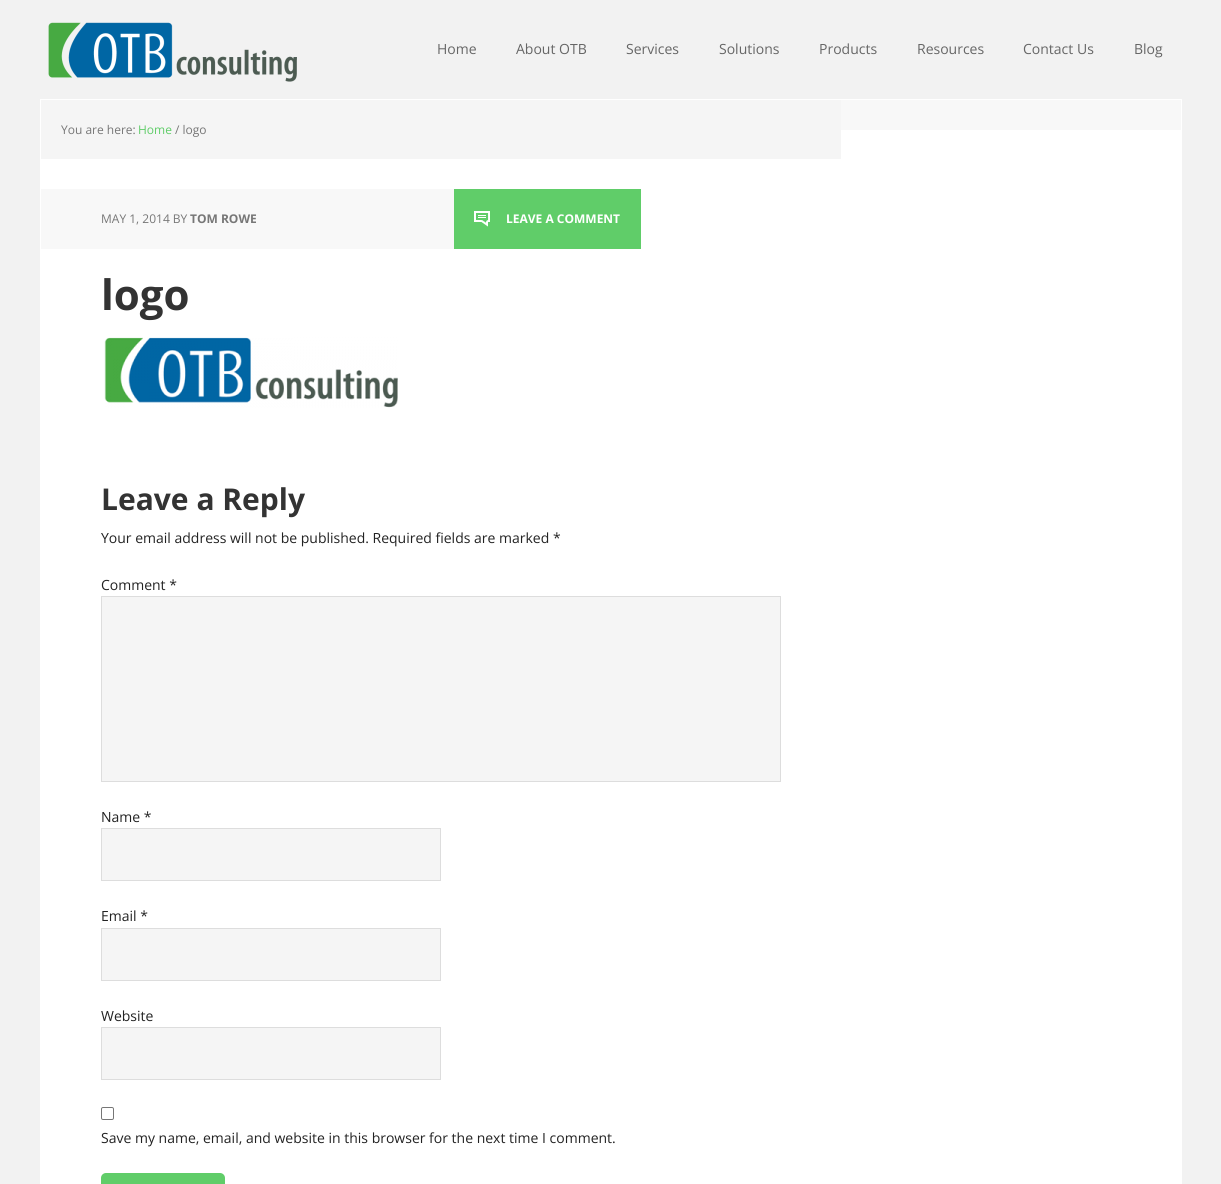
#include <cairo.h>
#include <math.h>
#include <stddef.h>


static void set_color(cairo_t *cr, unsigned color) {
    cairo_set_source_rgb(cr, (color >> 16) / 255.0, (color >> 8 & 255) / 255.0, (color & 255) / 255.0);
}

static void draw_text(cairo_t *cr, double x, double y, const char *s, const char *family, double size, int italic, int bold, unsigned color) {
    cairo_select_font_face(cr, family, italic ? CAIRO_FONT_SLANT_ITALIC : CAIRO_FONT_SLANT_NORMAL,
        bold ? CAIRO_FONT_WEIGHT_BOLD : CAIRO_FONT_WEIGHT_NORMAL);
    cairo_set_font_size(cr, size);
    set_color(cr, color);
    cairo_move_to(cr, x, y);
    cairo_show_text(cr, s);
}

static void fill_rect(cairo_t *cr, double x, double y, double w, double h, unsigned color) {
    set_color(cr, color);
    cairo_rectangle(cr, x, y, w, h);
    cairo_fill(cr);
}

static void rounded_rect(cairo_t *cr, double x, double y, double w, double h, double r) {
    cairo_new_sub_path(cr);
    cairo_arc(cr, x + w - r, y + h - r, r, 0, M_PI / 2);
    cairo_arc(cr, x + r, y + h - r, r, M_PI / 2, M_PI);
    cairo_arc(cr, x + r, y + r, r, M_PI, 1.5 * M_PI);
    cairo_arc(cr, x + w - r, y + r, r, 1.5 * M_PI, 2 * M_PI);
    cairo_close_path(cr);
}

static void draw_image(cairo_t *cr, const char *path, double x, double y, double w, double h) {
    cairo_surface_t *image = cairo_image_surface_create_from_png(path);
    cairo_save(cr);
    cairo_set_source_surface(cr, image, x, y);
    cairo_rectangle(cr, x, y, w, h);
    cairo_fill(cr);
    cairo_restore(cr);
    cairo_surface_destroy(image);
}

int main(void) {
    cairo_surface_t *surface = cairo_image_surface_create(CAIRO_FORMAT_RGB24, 1221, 1184);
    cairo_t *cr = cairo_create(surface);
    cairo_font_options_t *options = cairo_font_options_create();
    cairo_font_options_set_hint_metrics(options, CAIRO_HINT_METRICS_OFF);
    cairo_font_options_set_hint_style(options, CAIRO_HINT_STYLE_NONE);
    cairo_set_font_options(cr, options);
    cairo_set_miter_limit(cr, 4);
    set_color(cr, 0xF2F2F2);
    cairo_paint(cr);
    draw_image(cr, "assets/img1.png", 48, 22, 249, 60);
    draw_text(cr, 437, 54, "Home", "Open Sans", 14, 0, 0, 0x666666);
    draw_text(cr, 516, 54, "About OTB", "Open Sans", 14, 0, 0, 0x666666);
    draw_text(cr, 626, 54, "Services", "Open Sans", 14, 0, 0, 0x666666);
    draw_text(cr, 719, 54, "Solutions", "Open Sans", 14, 0, 0, 0x666666);
    draw_text(cr, 819, 54, "Products", "Open Sans", 14, 0, 0, 0x666666);
    draw_text(cr, 917, 54, "Resources", "Open Sans", 14, 0, 0, 0x666666);
    draw_text(cr, 1023, 54, "Contact Us", "Open Sans", 14, 0, 0, 0x666666);
    draw_text(cr, 1134, 54, "Blog", "Open Sans", 14, 0, 0, 0x666666);
    cairo_rectangle(cr, 40.5, 99.5, 1141, 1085);
    set_color(cr, 0xFFFFFF);
    cairo_set_line_width(cr, 1);
    cairo_stroke(cr);
    fill_rect(cr, 41, 130, 1140, 1054, 0xFFFFFF);
    fill_rect(cr, 841, 100, 340, 30, 0xF8F8F8);
    fill_rect(cr, 41, 100, 800, 59, 0xF5F5F5);
    draw_text(cr, 61, 134, "You are here:", "Open Sans", 12, 0, 0, 0x777777);
    draw_text(cr, 138, 134, "Home", "Open Sans", 12, 0, 0, 0x60CD69);
    draw_text(cr, 175, 134, "/ logo", "Open Sans", 12, 0, 0, 0x777777);
    fill_rect(cr, 41, 189, 413, 60, 0xF8F8F8);
    draw_text(cr, 101, 223, "MAY 1, 2014 BY", "Open Sans", 12, 0, 0, 0x777777);
    draw_text(cr, 190, 223, "TOM ROWE", "Open Sans", 12, 0, 1, 0x777777);
    fill_rect(cr, 454, 189, 187, 60, 0x60CD69);
    draw_image(cr, "assets/img2.png", 474, 211, 16, 16);
    draw_text(cr, 506, 223, "LEAVE A COMMENT", "Open Sans", 12, 0, 1, 0xFFFFFF);
    draw_text(cr, 101, 310, "logo", "Open Sans", 42, 0, 1, 0x333333);
    draw_image(cr, "assets/img3.png", 104, 337, 294, 71);
    draw_text(cr, 101, 510, "Leave a Reply", "Open Sans", 30, 0, 1, 0x333333);
    draw_text(cr, 101, 543, "Your email address will not be published. Required fields are marked *", "Open Sans", 14, 0, 0, 0x222222);
    draw_text(cr, 101, 590, "Comment *", "Open Sans", 14, 0, 0, 0x222222);
    set_color(cr, 0xF5F5F5);
    cairo_rectangle(cr, 101.5, 596.5, 679, 185);
    cairo_fill_preserve(cr);
    set_color(cr, 0xDDDDDD);
    cairo_stroke(cr);
    draw_text(cr, 101, 822, "Name *", "Open Sans", 14, 0, 0, 0x222222);
    set_color(cr, 0xF5F5F5);
    cairo_rectangle(cr, 101.5, 828.5, 339, 52);
    cairo_fill_preserve(cr);
    set_color(cr, 0xDDDDDD);
    cairo_stroke(cr);
    draw_text(cr, 101, 921, "Email *", "Open Sans", 14, 0, 0, 0x222222);
    set_color(cr, 0xF5F5F5);
    cairo_rectangle(cr, 101.5, 928.5, 339, 52);
    cairo_fill_preserve(cr);
    set_color(cr, 0xDDDDDD);
    cairo_stroke(cr);
    draw_text(cr, 101, 1021, "Website", "Open Sans", 14, 0, 0, 0x222222);
    set_color(cr, 0xF5F5F5);
    cairo_rectangle(cr, 101.5, 1027.5, 339, 52);
    cairo_fill_preserve(cr);
    set_color(cr, 0xDDDDDD);
    cairo_stroke(cr);
    rounded_rect(cr, 101.5, 1107.5, 12, 12, 1.5);
    set_color(cr, 0x767676);
    cairo_stroke(cr);
    draw_text(cr, 101, 1143, "Save my name, email, and website in this browser for the next time I comment.", "Open Sans", 14, 0, 0, 0x222222);
    set_color(cr, 0x60CD69);
    rounded_rect(cr, 101, 1173, 124, 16, 5);
    cairo_fill(cr);
    cairo_surface_write_to_png(surface, "output.png");
    cairo_font_options_destroy(options);
    cairo_destroy(cr);
    cairo_surface_destroy(surface);
    return 0;
}
